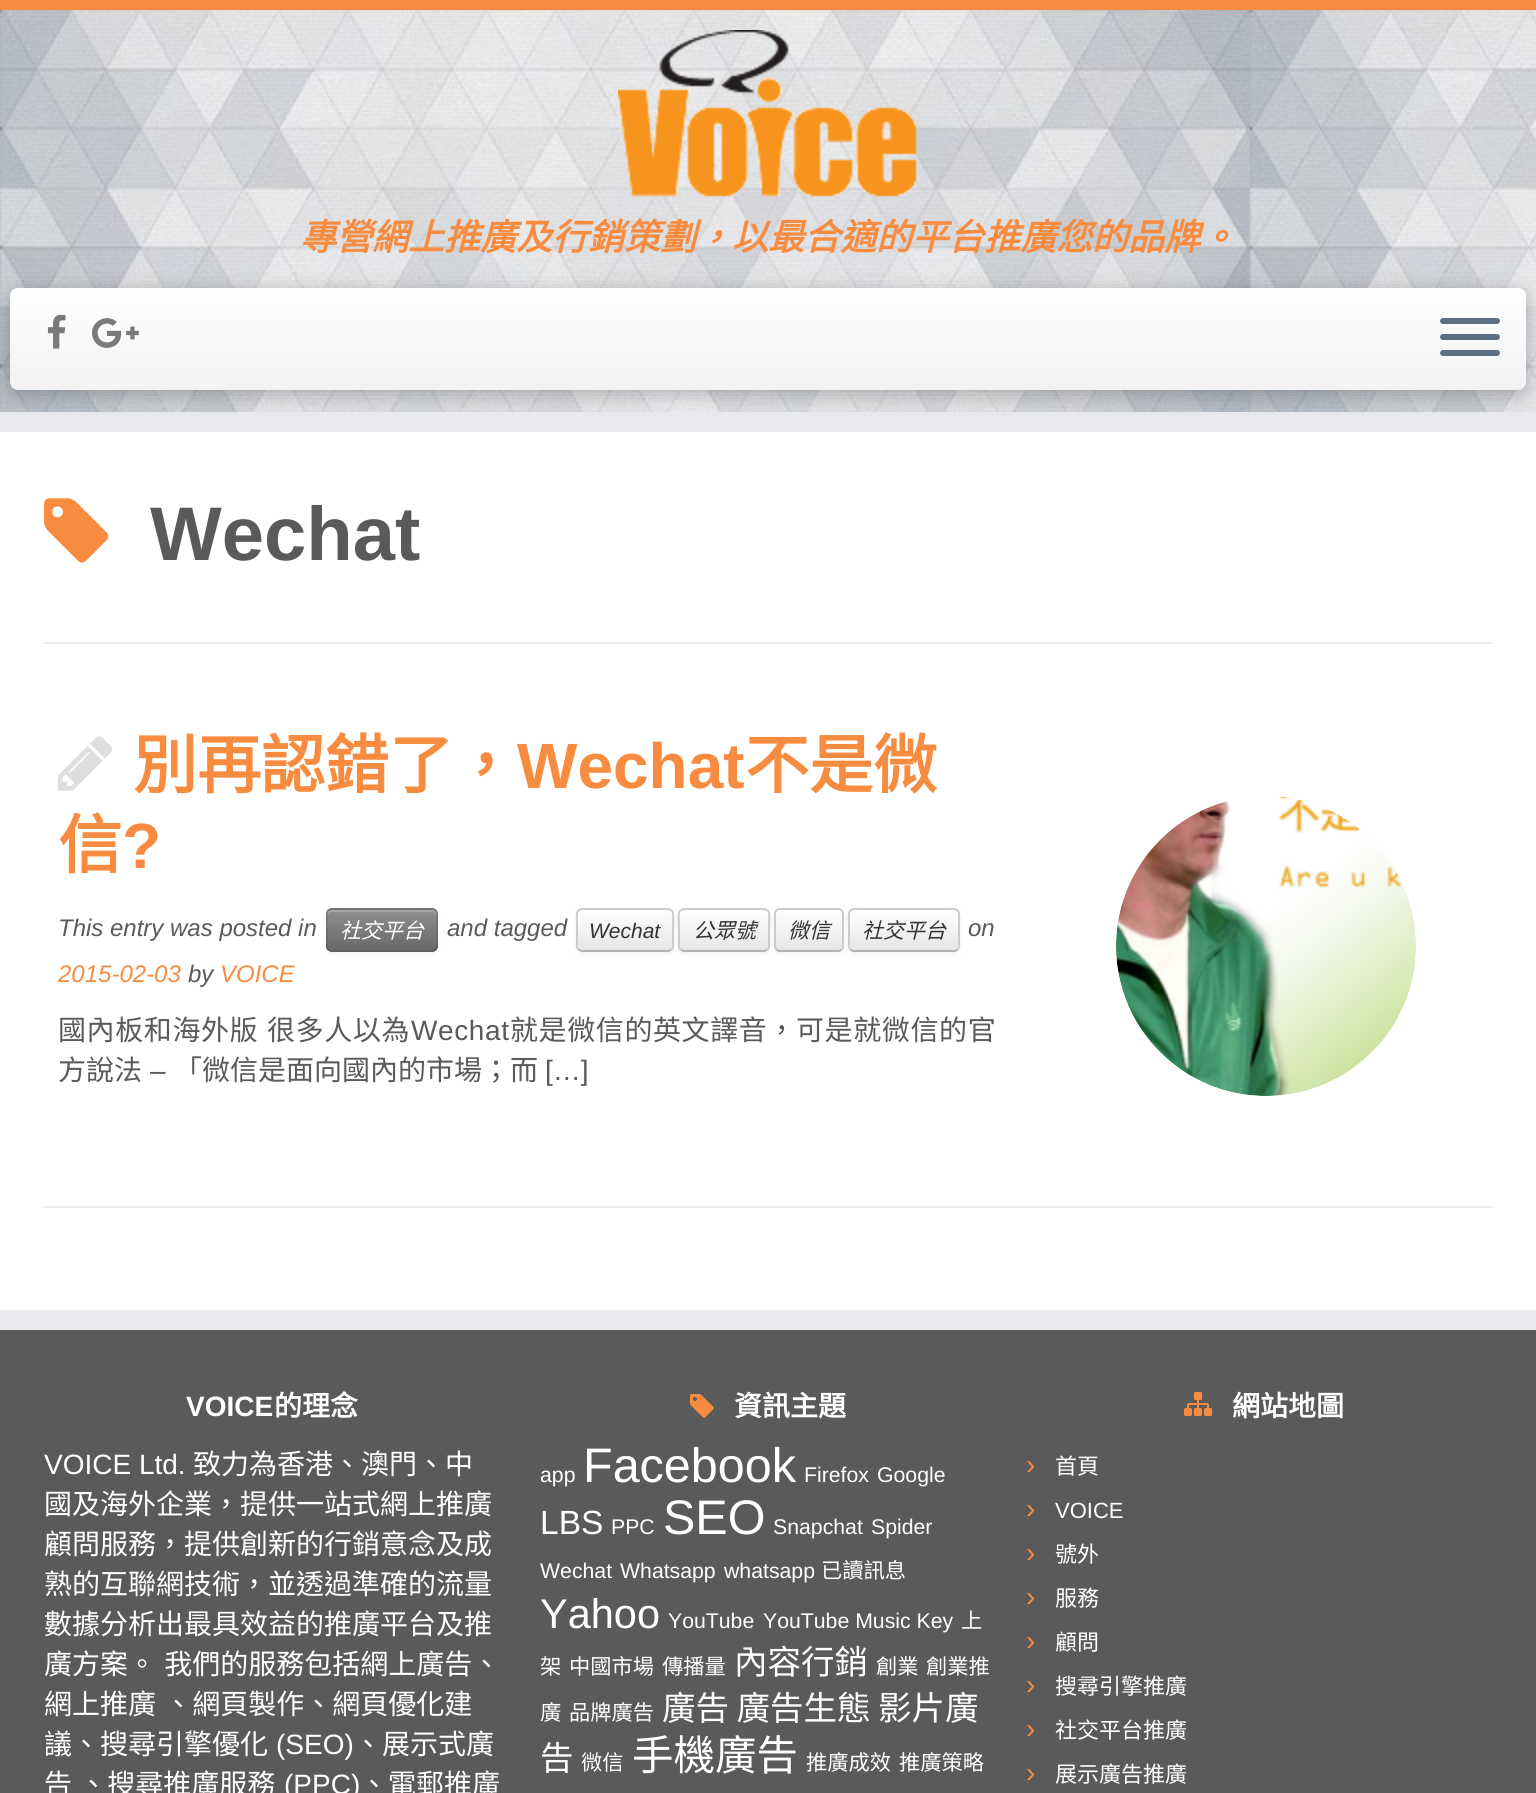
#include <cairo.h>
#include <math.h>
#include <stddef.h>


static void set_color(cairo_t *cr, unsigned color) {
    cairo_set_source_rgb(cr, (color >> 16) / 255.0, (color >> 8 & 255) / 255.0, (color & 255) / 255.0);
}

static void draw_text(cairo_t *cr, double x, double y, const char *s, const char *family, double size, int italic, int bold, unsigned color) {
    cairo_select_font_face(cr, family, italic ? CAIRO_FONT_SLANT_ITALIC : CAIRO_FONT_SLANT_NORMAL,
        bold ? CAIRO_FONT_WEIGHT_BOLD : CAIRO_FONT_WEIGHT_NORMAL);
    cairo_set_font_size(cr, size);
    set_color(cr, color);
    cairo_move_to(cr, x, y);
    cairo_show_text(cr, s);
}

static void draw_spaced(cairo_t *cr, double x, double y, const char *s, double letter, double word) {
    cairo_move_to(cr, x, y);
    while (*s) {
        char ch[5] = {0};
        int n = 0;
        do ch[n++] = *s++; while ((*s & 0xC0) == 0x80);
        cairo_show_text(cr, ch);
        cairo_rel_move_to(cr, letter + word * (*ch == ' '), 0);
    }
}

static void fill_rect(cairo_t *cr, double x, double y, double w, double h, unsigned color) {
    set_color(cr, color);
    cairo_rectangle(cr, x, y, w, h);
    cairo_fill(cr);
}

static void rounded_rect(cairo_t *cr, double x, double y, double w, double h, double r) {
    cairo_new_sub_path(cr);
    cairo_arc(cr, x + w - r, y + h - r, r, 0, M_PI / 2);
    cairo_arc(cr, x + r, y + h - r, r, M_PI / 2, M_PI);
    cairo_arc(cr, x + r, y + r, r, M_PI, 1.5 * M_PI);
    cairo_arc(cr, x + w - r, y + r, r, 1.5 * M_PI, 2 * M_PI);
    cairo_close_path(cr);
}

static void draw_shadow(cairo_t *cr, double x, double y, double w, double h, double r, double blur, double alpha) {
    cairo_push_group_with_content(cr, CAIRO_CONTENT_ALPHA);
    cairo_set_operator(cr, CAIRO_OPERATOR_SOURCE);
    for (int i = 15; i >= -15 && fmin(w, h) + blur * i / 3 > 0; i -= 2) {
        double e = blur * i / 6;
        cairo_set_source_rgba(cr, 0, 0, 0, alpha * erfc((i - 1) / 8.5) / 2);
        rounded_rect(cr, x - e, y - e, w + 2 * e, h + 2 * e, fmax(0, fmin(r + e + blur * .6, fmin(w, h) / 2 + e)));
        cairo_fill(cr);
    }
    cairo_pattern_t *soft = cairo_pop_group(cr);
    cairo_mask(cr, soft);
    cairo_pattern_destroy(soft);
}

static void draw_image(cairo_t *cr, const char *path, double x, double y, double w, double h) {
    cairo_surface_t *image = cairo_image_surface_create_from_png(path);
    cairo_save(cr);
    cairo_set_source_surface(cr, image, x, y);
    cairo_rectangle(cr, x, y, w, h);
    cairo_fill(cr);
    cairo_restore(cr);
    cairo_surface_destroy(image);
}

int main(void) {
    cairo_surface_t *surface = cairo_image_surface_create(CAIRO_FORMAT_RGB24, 1536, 1793);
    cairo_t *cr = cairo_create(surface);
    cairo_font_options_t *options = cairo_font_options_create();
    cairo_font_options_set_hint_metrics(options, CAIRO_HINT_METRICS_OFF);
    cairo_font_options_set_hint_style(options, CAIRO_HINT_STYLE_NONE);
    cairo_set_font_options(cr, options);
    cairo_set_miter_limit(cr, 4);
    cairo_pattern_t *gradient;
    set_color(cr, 0xFFFFFF);
    cairo_paint(cr);
    draw_image(cr, "assets/img1.png", 0, 10, 1536, 402);
    fill_rect(cr, 0, 0, 1536, 10, 0xF78C40);
    fill_rect(cr, 0, 412, 1536, 20, 0xE9EAEE);
    draw_image(cr, "assets/img2.png", 618, 30, 299, 167);
    draw_text(cr, 300, 250, "專營網上推廣及行銷策劃，以最合適的平台推廣您的品牌。", "Noto Sans CJK HK", 36, 1, 1, 0xF78C40);
    set_color(cr, 0x000000);
    draw_shadow(cr, 10, 292, 1516, 102, 8, 10, 0.25);
    gradient = cairo_pattern_create_linear(768, 288, 768, 390);
    cairo_pattern_add_color_stop_rgba(gradient, 0, 1, 1, 1, 1);
    cairo_pattern_add_color_stop_rgba(gradient, 1, 0.949, 0.949, 0.949, 1);
    cairo_set_source(cr, gradient);
    cairo_pattern_destroy(gradient);
    rounded_rect(cr, 10, 288, 1516, 102, 8);
    cairo_fill(cr);
    draw_image(cr, "assets/img3.png", 47, 314, 19, 35);
    draw_image(cr, "assets/img4.png", 92, 318, 47, 30);
    set_color(cr, 0x5F6F81);
    rounded_rect(cr, 1440, 318, 60, 6, 3);
    cairo_fill(cr);
    rounded_rect(cr, 1440, 334, 60, 6, 3);
    cairo_fill(cr);
    rounded_rect(cr, 1440, 350, 60, 6, 3);
    cairo_fill(cr);
    draw_image(cr, "assets/img5.png", 44, 498, 65, 65);
    draw_text(cr, 150, 560, "Wechat", "Liberation Sans", 76, 0, 1, 0x5A5A5A);
    fill_rect(cr, 44, 642, 1448, 2, 0xEEEEEE);
    draw_image(cr, "assets/img6.png", 58, 736, 54, 55);
    draw_text(cr, 133, 788, "別再認錯了，", "Noto Sans CJK HK", 64, 0, 1, 0xF78C40);
    draw_text(cr, 517, 788, "Wechat", "Liberation Sans", 64, 0, 1, 0xF78C40);
    draw_text(cr, 745, 788, "不是微", "Noto Sans CJK HK", 64, 0, 1, 0xF78C40);
    draw_text(cr, 58, 868, "信", "Noto Sans CJK HK", 64, 0, 1, 0xF78C40);
    draw_text(cr, 122, 868, "?", "Liberation Sans", 64, 0, 1, 0xF78C40);
    draw_text(cr, 58, 936, "This entry was posted in", "Liberation Sans", 24, 1, 0, 0x5A5A5A);
    set_color(cr, 0x000000);
    draw_shadow(cr, 326, 910, 112, 44, 6, 2, 0.05);
    set_color(cr, 0x808080);
    rounded_rect(cr, 326, 908, 112, 44, 6);
    cairo_fill(cr);
    cairo_save(cr);
    rounded_rect(cr, 326, 908, 112, 44, 6);
    cairo_clip(cr);
    gradient = cairo_pattern_create_linear(382, 910, 382, 950);
    cairo_pattern_add_color_stop_rgba(gradient, 0, 0.561, 0.561, 0.561, 1);
    cairo_pattern_add_color_stop_rgba(gradient, 1, 0.412, 0.412, 0.412, 1);
    cairo_set_source(cr, gradient);
    cairo_pattern_destroy(gradient);
    cairo_rectangle(cr, 326, 910, 112, 40);
    cairo_fill(cr);
    cairo_restore(cr);
    cairo_set_source_rgba(cr, 1, 1, 1, 0.2);
    cairo_new_path(cr);
    cairo_move_to(cr, 332, 912);
    cairo_line_to(cr, 432, 912);
    cairo_curve_to(cr, 434, 912, 436, 914, 436, 916);
    cairo_line_to(cr, 436, 914);
    cairo_curve_to(cr, 436, 912, 434, 910, 432, 910);
    cairo_line_to(cr, 332, 910);
    cairo_curve_to(cr, 330, 910, 328, 912, 328, 914);
    cairo_line_to(cr, 328, 916);
    cairo_curve_to(cr, 328, 914, 330, 912, 332, 912);
    cairo_close_path(cr);
    cairo_fill(cr);
    cairo_new_path(cr);
    cairo_move_to(cr, 435.5, 949.5);
    cairo_curve_to(cr, 434.5, 950.5, 433.5, 951, 432, 951);
    cairo_line_to(cr, 332, 951);
    cairo_curve_to(cr, 330.5, 951, 329.5, 950.5, 328.5, 949.5);
    cairo_set_source_rgba(cr, 0, 0, 0, 0.25);
    cairo_stroke(cr);
    cairo_new_path(cr);
    cairo_move_to(cr, 328.5, 949.5);
    cairo_curve_to(cr, 326, 947.5, 327, 943.5, 327, 940.5);
    cairo_line_to(cr, 327, 930);
    cairo_curve_to(cr, 327, 906, 323.5, 909, 348.5, 909);
    cairo_line_to(cr, 415.5, 909);
    cairo_curve_to(cr, 440.5, 909, 437, 906, 437, 930);
    cairo_line_to(cr, 437, 940.5);
    cairo_curve_to(cr, 437, 943.5, 438, 947.5, 435.5, 949.5);
    cairo_set_source_rgba(cr, 0, 0, 0, 0.1);
    cairo_stroke(cr);
    draw_text(cr, 340, 938, "社交平台", "Noto Sans CJK HK", 21, 1, 0, 0xFFFFFF);
    draw_text(cr, 447, 936, "and tagged", "Liberation Sans", 24, 1, 0, 0x5A5A5A);
    set_color(cr, 0x000000);
    draw_shadow(cr, 576, 910, 98, 44, 6, 2, 0.05);
    set_color(cr, 0xF5F5F5);
    rounded_rect(cr, 576, 908, 98, 44, 6);
    cairo_fill(cr);
    cairo_save(cr);
    rounded_rect(cr, 576, 908, 98, 44, 6);
    cairo_clip(cr);
    gradient = cairo_pattern_create_linear(625, 910, 625, 950);
    cairo_pattern_add_color_stop_rgba(gradient, 0, 1, 1, 1, 1);
    cairo_pattern_add_color_stop_rgba(gradient, 1, 0.902, 0.902, 0.902, 1);
    cairo_set_source(cr, gradient);
    cairo_pattern_destroy(gradient);
    cairo_rectangle(cr, 576, 910, 98, 40);
    cairo_fill(cr);
    cairo_restore(cr);
    cairo_new_path(cr);
    cairo_move_to(cr, 671.5, 949.5);
    cairo_line_to(cr, 668.5, 951);
    cairo_line_to(cr, 581.5, 951);
    cairo_line_to(cr, 578.5, 949.5);
    set_color(cr, 0xB3B3B3);
    cairo_stroke(cr);
    cairo_new_path(cr);
    cairo_move_to(cr, 578.5, 949.5);
    cairo_curve_to(cr, 576, 947.5, 577, 943.5, 577, 940.5);
    cairo_line_to(cr, 577, 930);
    cairo_curve_to(cr, 577, 907, 573.5, 909, 596.5, 909);
    cairo_line_to(cr, 653.5, 909);
    cairo_curve_to(cr, 676.5, 909, 673, 907, 673, 930);
    cairo_line_to(cr, 673, 940.5);
    cairo_curve_to(cr, 673, 943.5, 674, 947.5, 671.5, 949.5);
    set_color(cr, 0xCCCCCC);
    cairo_stroke(cr);
    draw_text(cr, 589, 938, "Wechat", "Liberation Sans", 21, 1, 0, 0x333333);
    set_color(cr, 0x000000);
    draw_shadow(cr, 678, 910, 92, 44, 6, 2, 0.05);
    set_color(cr, 0xF5F5F5);
    rounded_rect(cr, 678, 908, 92, 44, 6);
    cairo_fill(cr);
    cairo_save(cr);
    rounded_rect(cr, 678, 908, 92, 44, 6);
    cairo_clip(cr);
    gradient = cairo_pattern_create_linear(724, 910, 724, 950);
    cairo_pattern_add_color_stop_rgba(gradient, 0, 1, 1, 1, 1);
    cairo_pattern_add_color_stop_rgba(gradient, 1, 0.902, 0.902, 0.902, 1);
    cairo_set_source(cr, gradient);
    cairo_pattern_destroy(gradient);
    cairo_rectangle(cr, 678, 910, 92, 40);
    cairo_fill(cr);
    cairo_restore(cr);
    cairo_new_path(cr);
    cairo_move_to(cr, 767.5, 949.5);
    cairo_line_to(cr, 764.5, 951);
    cairo_line_to(cr, 683.5, 951);
    cairo_line_to(cr, 680.5, 949.5);
    set_color(cr, 0xB3B3B3);
    cairo_stroke(cr);
    cairo_new_path(cr);
    cairo_move_to(cr, 680.5, 949.5);
    cairo_curve_to(cr, 678, 947.5, 679, 943.5, 679, 940.5);
    cairo_line_to(cr, 679, 930);
    cairo_curve_to(cr, 679, 907.5, 675, 909, 697.5, 909);
    cairo_line_to(cr, 750.5, 909);
    cairo_curve_to(cr, 773, 909, 769, 907.5, 769, 930);
    cairo_line_to(cr, 769, 940.5);
    cairo_curve_to(cr, 769, 943.5, 770, 947.5, 767.5, 949.5);
    set_color(cr, 0xCCCCCC);
    cairo_stroke(cr);
    draw_text(cr, 693, 938, "公眾號", "Noto Sans CJK HK", 21, 1, 0, 0x333333);
    set_color(cr, 0x000000);
    draw_shadow(cr, 774, 910, 70, 44, 6, 2, 0.05);
    cairo_save(cr);
    rounded_rect(cr, 774, 908, 70, 44, 6);
    cairo_clip(cr);
    gradient = cairo_pattern_create_linear(809, 910, 809, 950);
    cairo_pattern_add_color_stop_rgba(gradient, 0, 1, 1, 1, 1);
    cairo_pattern_add_color_stop_rgba(gradient, 1, 0.902, 0.902, 0.902, 1);
    cairo_set_source(cr, gradient);
    cairo_pattern_destroy(gradient);
    cairo_rectangle(cr, 774, 910, 70, 40);
    cairo_fill(cr);
    cairo_restore(cr);
    cairo_new_path(cr);
    cairo_move_to(cr, 841.5, 949.5);
    cairo_curve_to(cr, 840.5, 950.5, 839.5, 951, 838, 951);
    cairo_line_to(cr, 780, 951);
    cairo_curve_to(cr, 778.5, 951, 777.5, 950.5, 776.5, 949.5);
    set_color(cr, 0xB3B3B3);
    cairo_stroke(cr);
    cairo_new_path(cr);
    cairo_move_to(cr, 776.5, 949.5);
    cairo_curve_to(cr, 775.5, 948.5, 775, 947.5, 775, 946);
    cairo_line_to(cr, 775, 914);
    cairo_curve_to(cr, 775, 912.5, 775.5, 911.5, 776.5, 910.5);
    cairo_curve_to(cr, 777.5, 909.5, 778.5, 909, 780, 909);
    cairo_line_to(cr, 838, 909);
    cairo_curve_to(cr, 839.5, 909, 840.5, 909.5, 841.5, 910.5);
    cairo_curve_to(cr, 842.5, 911.5, 843, 912.5, 843, 914);
    cairo_line_to(cr, 843, 946);
    cairo_curve_to(cr, 843, 947.5, 842.5, 948.5, 841.5, 949.5);
    set_color(cr, 0xCCCCCC);
    cairo_stroke(cr);
    draw_text(cr, 788, 938, "微信", "Noto Sans CJK HK", 21, 1, 0, 0x333333);
    set_color(cr, 0x000000);
    draw_shadow(cr, 848, 910, 112, 44, 6, 2, 0.05);
    cairo_save(cr);
    rounded_rect(cr, 848, 908, 112, 44, 6);
    cairo_clip(cr);
    gradient = cairo_pattern_create_linear(904, 910, 904, 950);
    cairo_pattern_add_color_stop_rgba(gradient, 0, 1, 1, 1, 1);
    cairo_pattern_add_color_stop_rgba(gradient, 1, 0.902, 0.902, 0.902, 1);
    cairo_set_source(cr, gradient);
    cairo_pattern_destroy(gradient);
    cairo_rectangle(cr, 848, 910, 112, 40);
    cairo_fill(cr);
    cairo_restore(cr);
    cairo_new_path(cr);
    cairo_move_to(cr, 957.5, 949.5);
    cairo_curve_to(cr, 956.5, 950.5, 955.5, 951, 954, 951);
    cairo_line_to(cr, 854, 951);
    cairo_curve_to(cr, 852.5, 951, 851.5, 950.5, 850.5, 949.5);
    set_color(cr, 0xB3B3B3);
    cairo_stroke(cr);
    cairo_new_path(cr);
    cairo_move_to(cr, 850.5, 949.5);
    cairo_curve_to(cr, 848, 947.5, 849, 943.5, 849, 940.5);
    cairo_line_to(cr, 849, 930);
    cairo_curve_to(cr, 849, 906, 845.5, 909, 870.5, 909);
    cairo_line_to(cr, 937.5, 909);
    cairo_curve_to(cr, 962.5, 909, 959, 906, 959, 930);
    cairo_line_to(cr, 959, 940.5);
    cairo_curve_to(cr, 959, 943.5, 960, 947.5, 957.5, 949.5);
    set_color(cr, 0xCCCCCC);
    cairo_stroke(cr);
    draw_text(cr, 862, 938, "社交平台", "Noto Sans CJK HK", 21, 1, 0, 0x333333);
    draw_text(cr, 968, 936, "on", "Liberation Sans", 24, 1, 0, 0x5A5A5A);
    draw_text(cr, 58, 982, "2015-02-03", "Liberation Sans", 24, 1, 0, 0xF78C40);
    draw_text(cr, 188, 982, "by", "Liberation Sans", 24, 1, 0, 0x5A5A5A);
    draw_text(cr, 220, 982, "VOICE", "Liberation Sans", 24, 1, 0, 0xF78C40);
    cairo_select_font_face(cr, "Noto Sans CJK HK", CAIRO_FONT_SLANT_NORMAL, CAIRO_FONT_WEIGHT_NORMAL);
    cairo_set_font_size(cr, 28);
    set_color(cr, 0x5A5A5A);
    draw_spaced(cr, 58, 1040, "國內板和海外版 很多人以為", 0.6, 2);
    cairo_select_font_face(cr, "Liberation Sans", CAIRO_FONT_SLANT_NORMAL, CAIRO_FONT_WEIGHT_NORMAL);
    draw_spaced(cr, 411, 1040, "Wechat", 0.6, 0);
    cairo_select_font_face(cr, "Noto Sans CJK HK", CAIRO_FONT_SLANT_NORMAL, CAIRO_FONT_WEIGHT_NORMAL);
    draw_spaced(cr, 510, 1040, "就是微信的英文譯音，可是就微信的官", 0.6, 0);
    draw_text(cr, 58, 1080, "方說法", "Noto Sans CJK HK", 28, 0, 0, 0x5A5A5A);
    draw_text(cr, 150, 1080, "–", "Liberation Sans", 28, 0, 0, 0x5A5A5A);
    draw_text(cr, 174, 1080, "「微信是面向國內的市場；而", "Noto Sans CJK HK", 28, 0, 0, 0x5A5A5A);
    draw_text(cr, 545, 1080, "[…]", "Liberation Sans", 28, 0, 0, 0x5A5A5A);
    draw_image(cr, "assets/img7.png", 1116, 796, 300, 300);
    fill_rect(cr, 44, 1206, 1448, 2, 0xEEEEEE);
    cairo_save(cr);
    cairo_rectangle(cr, 1062, 706, 402, 500);
    cairo_clip(cr);
    cairo_arc(cr, 1266, 946, 244, 0, 2 * M_PI);
    set_color(cr, 0xFFFFFF);
    cairo_set_line_width(cr, 188);
    cairo_stroke(cr);
    cairo_arc(cr, 1266, 946, 244, 0, 2 * M_PI);
    cairo_stroke(cr);
    cairo_restore(cr);
    fill_rect(cr, 0, 1330, 1536, 463, 0x5A5A5A);
    fill_rect(cr, 0, 1310, 1536, 20, 0xE9EAEE);
    draw_text(cr, 186, 1416, "VOICE", "Liberation Sans", 28, 0, 1, 0xFFFFFF);
    draw_text(cr, 274, 1416, "的理念", "Noto Sans CJK HK", 28, 0, 1, 0xFFFFFF);
    draw_text(cr, 44, 1474, "VOICE Ltd.", "Liberation Sans", 28, 0, 0, 0xFFFFFF);
    draw_text(cr, 193, 1474, "致力為香港、澳門、中", "Noto Sans CJK HK", 28, 0, 0, 0xFFFFFF);
    draw_text(cr, 44, 1514, "國及海外企業，提供一站式網上推廣", "Noto Sans CJK HK", 28, 0, 0, 0xFFFFFF);
    draw_text(cr, 44, 1554, "顧問服務，提供創新的行銷意念及成", "Noto Sans CJK HK", 28, 0, 0, 0xFFFFFF);
    draw_text(cr, 44, 1594, "熟的互聯網技術，並透過準確的流量", "Noto Sans CJK HK", 28, 0, 0, 0xFFFFFF);
    draw_text(cr, 44, 1634, "數據分析出最具效益的推廣平台及推", "Noto Sans CJK HK", 28, 0, 0, 0xFFFFFF);
    draw_spaced(cr, 44, 1674, "廣方案。 我們的服務包括網上廣告、", 0, 2);
    draw_spaced(cr, 44, 1714, "網上推廣 、網頁製作、網頁優化建", 0, 2);
    draw_text(cr, 44, 1754, "議、搜尋引擎優化", "Noto Sans CJK HK", 28, 0, 0, 0xFFFFFF);
    draw_text(cr, 276, 1754, "(SEO)", "Liberation Sans", 28, 0, 0, 0xFFFFFF);
    draw_text(cr, 354, 1754, "、展示式廣", "Noto Sans CJK HK", 28, 0, 0, 0xFFFFFF);
    draw_spaced(cr, 44, 1794, "告 、搜尋推廣服務", 0, 1);
    draw_text(cr, 284, 1794, "(PPC)", "Liberation Sans", 28, 0, 0, 0xFFFFFF);
    draw_text(cr, 360, 1794, "、電郵推廣", "Noto Sans CJK HK", 28, 0, 0, 0xFFFFFF);
    draw_image(cr, "assets/img8.png", 690, 1394, 24, 24);
    draw_text(cr, 734, 1416, "資訊主題", "Noto Sans CJK HK", 28, 0, 1, 0xFFFFFF);
    draw_text(cr, 540, 1482, "app", "Liberation Sans", 21.25, 0, 0, 0xFFFFFF);
    draw_text(cr, 583, 1482, "Facebook", "Liberation Sans", 48.5, 0, 0, 0xFFFFFF);
    draw_text(cr, 804, 1482, "Firefox", "Liberation Sans", 21.25, 0, 0, 0xFFFFFF);
    draw_text(cr, 877, 1482, "Google", "Liberation Sans", 21.25, 0, 0, 0xFFFFFF);
    draw_text(cr, 540, 1534, "LBS", "Liberation Sans", 33.5, 0, 0, 0xFFFFFF);
    draw_text(cr, 611, 1534, "PPC", "Liberation Sans", 21.25, 0, 0, 0xFFFFFF);
    draw_text(cr, 663, 1534, "SEO", "Liberation Sans", 48.5, 0, 0, 0xFFFFFF);
    draw_text(cr, 773, 1534, "Snapchat", "Liberation Sans", 21.25, 0, 0, 0xFFFFFF);
    draw_text(cr, 871, 1534, "Spider", "Liberation Sans", 21.25, 0, 0, 0xFFFFFF);
    draw_text(cr, 540, 1578, "Wechat", "Liberation Sans", 21.25, 0, 0, 0xFFFFFF);
    draw_text(cr, 620, 1578, "Whatsapp", "Liberation Sans", 21.25, 0, 0, 0xFFFFFF);
    draw_text(cr, 724, 1578, "whatsapp", "Liberation Sans", 21.25, 0, 0, 0xFFFFFF);
    draw_text(cr, 821, 1578, "已讀訊息", "Noto Sans CJK HK", 21.25, 0, 0, 0xFFFFFF);
    draw_text(cr, 540, 1628, "Yahoo", "Liberation Sans", 41.5, 0, 0, 0xFFFFFF);
    draw_text(cr, 668, 1628, "YouTube", "Liberation Sans", 21.25, 0, 0, 0xFFFFFF);
    draw_text(cr, 763, 1628, "YouTube Music Key", "Liberation Sans", 21.25, 0, 0, 0xFFFFFF);
    draw_text(cr, 961, 1628, "上", "Noto Sans CJK HK", 21.25, 0, 0, 0xFFFFFF);
    draw_text(cr, 540, 1674, "架", "Noto Sans CJK HK", 21.25, 0, 0, 0xFFFFFF);
    draw_text(cr, 569, 1674, "中國市場", "Noto Sans CJK HK", 21.25, 0, 0, 0xFFFFFF);
    draw_text(cr, 662, 1674, "傳播量", "Noto Sans CJK HK", 21.25, 0, 0, 0xFFFFFF);
    draw_text(cr, 734, 1674, "內容行銷", "Noto Sans CJK HK", 33.5, 0, 0, 0xFFFFFF);
    draw_text(cr, 876, 1674, "創業", "Noto Sans CJK HK", 21.25, 0, 0, 0xFFFFFF);
    draw_text(cr, 926, 1674, "創業推", "Noto Sans CJK HK", 21.25, 0, 0, 0xFFFFFF);
    draw_text(cr, 540, 1720, "廣", "Noto Sans CJK HK", 21.25, 0, 0, 0xFFFFFF);
    draw_text(cr, 569, 1720, "品牌廣告", "Noto Sans CJK HK", 21.25, 0, 0, 0xFFFFFF);
    draw_text(cr, 662, 1720, "廣告 廣告生態 影片廣", "Noto Sans CJK HK", 33.5, 0, 0, 0xFFFFFF);
    draw_text(cr, 540, 1770, "告", "Noto Sans CJK HK", 33.5, 0, 0, 0xFFFFFF);
    draw_text(cr, 581, 1770, "微信", "Noto Sans CJK HK", 21.25, 0, 0, 0xFFFFFF);
    draw_text(cr, 632, 1770, "手機廣告", "Noto Sans CJK HK", 41.5, 0, 0, 0xFFFFFF);
    draw_text(cr, 806, 1770, "推廣成效", "Noto Sans CJK HK", 21.25, 0, 0, 0xFFFFFF);
    draw_text(cr, 899, 1770, "推廣策略", "Noto Sans CJK HK", 21.25, 0, 0, 0xFFFFFF);
    draw_image(cr, "assets/img9.png", 1184, 1392, 28, 24);
    draw_text(cr, 1232, 1416, "網站地圖", "Noto Sans CJK HK", 28, 0, 1, 0xFFFFFF);
    draw_text(cr, 1026, 1474, "›", "Liberation Sans", 28, 0, 0, 0xF78C40);
    draw_text(cr, 1055, 1474, "首頁", "Noto Sans CJK HK", 22, 0, 0, 0xFFFFFF);
    draw_text(cr, 1026, 1518, "›", "Liberation Sans", 28, 0, 0, 0xF78C40);
    draw_text(cr, 1055, 1518, "VOICE", "Liberation Sans", 22, 0, 0, 0xFFFFFF);
    draw_text(cr, 1026, 1562, "›", "Liberation Sans", 28, 0, 0, 0xF78C40);
    draw_text(cr, 1055, 1562, "號外", "Noto Sans CJK HK", 22, 0, 0, 0xFFFFFF);
    draw_text(cr, 1026, 1606, "›", "Liberation Sans", 28, 0, 0, 0xF78C40);
    draw_text(cr, 1055, 1606, "服務", "Noto Sans CJK HK", 22, 0, 0, 0xFFFFFF);
    draw_text(cr, 1026, 1650, "›", "Liberation Sans", 28, 0, 0, 0xF78C40);
    draw_text(cr, 1055, 1650, "顧問", "Noto Sans CJK HK", 22, 0, 0, 0xFFFFFF);
    draw_text(cr, 1026, 1694, "›", "Liberation Sans", 28, 0, 0, 0xF78C40);
    draw_text(cr, 1055, 1694, "搜尋引擎推廣", "Noto Sans CJK HK", 22, 0, 0, 0xFFFFFF);
    draw_text(cr, 1026, 1738, "›", "Liberation Sans", 28, 0, 0, 0xF78C40);
    draw_text(cr, 1055, 1738, "社交平台推廣", "Noto Sans CJK HK", 22, 0, 0, 0xFFFFFF);
    draw_text(cr, 1026, 1782, "›", "Liberation Sans", 28, 0, 0, 0xF78C40);
    draw_text(cr, 1055, 1782, "展示廣告推廣", "Noto Sans CJK HK", 22, 0, 0, 0xFFFFFF);
    cairo_surface_write_to_png(surface, "output.png");
    cairo_font_options_destroy(options);
    cairo_destroy(cr);
    cairo_surface_destroy(surface);
    return 0;
}
